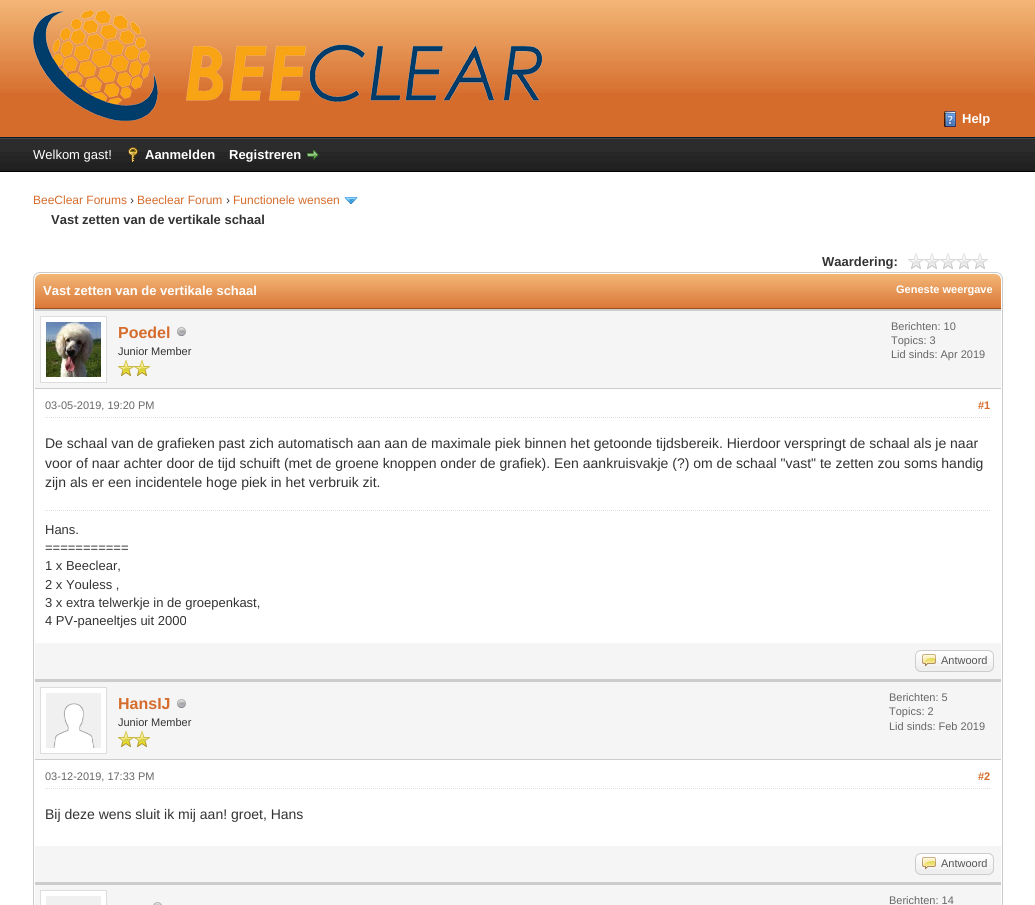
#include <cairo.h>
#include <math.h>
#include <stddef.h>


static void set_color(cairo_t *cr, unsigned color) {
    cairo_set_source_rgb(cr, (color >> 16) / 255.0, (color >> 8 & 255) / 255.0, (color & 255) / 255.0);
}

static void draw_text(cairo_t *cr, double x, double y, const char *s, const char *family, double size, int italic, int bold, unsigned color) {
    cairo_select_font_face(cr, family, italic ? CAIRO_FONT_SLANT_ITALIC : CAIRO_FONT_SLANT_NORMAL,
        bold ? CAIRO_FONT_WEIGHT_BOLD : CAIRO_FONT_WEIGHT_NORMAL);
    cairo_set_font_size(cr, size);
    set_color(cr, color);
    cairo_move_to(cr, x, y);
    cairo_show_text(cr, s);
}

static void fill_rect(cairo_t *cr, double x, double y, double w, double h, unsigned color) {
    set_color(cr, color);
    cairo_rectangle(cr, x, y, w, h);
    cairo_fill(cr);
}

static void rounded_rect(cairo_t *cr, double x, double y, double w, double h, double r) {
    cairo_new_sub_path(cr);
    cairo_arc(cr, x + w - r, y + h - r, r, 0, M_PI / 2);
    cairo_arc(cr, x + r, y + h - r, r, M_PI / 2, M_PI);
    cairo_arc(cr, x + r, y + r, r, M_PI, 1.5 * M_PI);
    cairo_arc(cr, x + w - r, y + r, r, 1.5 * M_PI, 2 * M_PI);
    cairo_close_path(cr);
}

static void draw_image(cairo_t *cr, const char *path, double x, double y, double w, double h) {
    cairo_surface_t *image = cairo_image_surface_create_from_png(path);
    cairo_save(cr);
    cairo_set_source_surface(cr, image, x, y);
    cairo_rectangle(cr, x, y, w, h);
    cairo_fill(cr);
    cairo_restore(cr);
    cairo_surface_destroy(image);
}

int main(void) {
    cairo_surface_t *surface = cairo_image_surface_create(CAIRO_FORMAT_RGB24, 1035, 905);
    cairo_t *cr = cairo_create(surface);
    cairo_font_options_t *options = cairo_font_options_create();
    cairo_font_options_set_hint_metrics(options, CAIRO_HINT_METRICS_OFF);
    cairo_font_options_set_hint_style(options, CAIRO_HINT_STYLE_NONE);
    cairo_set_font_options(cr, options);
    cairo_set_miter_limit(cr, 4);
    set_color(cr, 0xFFFFFF);
    cairo_paint(cr);
    fill_rect(cr, 0, 93, 1035, 44, 0xD56C2C);
    draw_image(cr, "assets/img1.png", 0, 0, 1035, 93);
    fill_rect(cr, 0, 137, 1035, 1, 0x011929);
    draw_image(cr, "assets/img2.png", 33, 10, 509, 111);
    draw_image(cr, "assets/img3.png", 944, 111, 12, 16);
    draw_text(cr, 962, 123, "Help", "Liberation Sans", 13, 0, 1, 0xFFFFFF);
    draw_image(cr, "assets/img4.png", 0, 139, 1035, 32);
    fill_rect(cr, 0, 138, 1035, 1, 0x444444);
    fill_rect(cr, 0, 171, 1035, 1, 0x000000);
    draw_text(cr, 33, 159, "Welkom gast!", "Liberation Sans", 13, 0, 0, 0xFFFFFF);
    draw_image(cr, "assets/img5.png", 128, 147, 10, 15);
    draw_text(cr, 145, 159, "Aanmelden", "Liberation Sans", 13, 0, 1, 0xFFFFFF);
    draw_text(cr, 229, 159, "Registreren", "Liberation Sans", 13, 0, 1, 0xFFFFFF);
    draw_image(cr, "assets/img6.png", 307, 150, 12, 10);
    draw_text(cr, 33, 204, "BeeClear Forums", "Liberation Sans", 12, 0, 0, 0xD56C2C);
    draw_text(cr, 130, 204, "›", "Liberation Sans", 12, 0, 0, 0x333333);
    draw_text(cr, 137, 204, "Beeclear Forum", "Liberation Sans", 12, 0, 0, 0xD56C2C);
    draw_text(cr, 226, 204, "›", "Liberation Sans", 12, 0, 0, 0x333333);
    draw_text(cr, 233, 204, "Functionele wensen", "Liberation Sans", 12, 0, 0, 0xD56C2C);
    draw_image(cr, "assets/img7.png", 344, 197, 14, 7);
    draw_text(cr, 51, 224, "Vast zetten van de vertikale schaal", "Liberation Sans", 13, 0, 1, 0x333333);
    draw_text(cr, 822, 266, "Waardering:", "Liberation Sans", 13, 0, 1, 0x333333);
    draw_image(cr, "assets/img8.png", 908, 253, 80, 16);
    rounded_rect(cr, 33.5, 272.5, 969, 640, 6.5);
    set_color(cr, 0xCCCCCC);
    cairo_set_line_width(cr, 1);
    cairo_stroke(cr);
    draw_image(cr, "assets/img9.png", 35, 274, 966, 34);
    fill_rect(cr, 35, 308, 966, 1, 0x9A4E20);
    draw_text(cr, 43, 295, "Vast zetten van de vertikale schaal", "Liberation Sans", 13, 0, 1, 0xFFFFFF);
    draw_text(cr, 896, 293, "Geneste weergave", "Liberation Sans", 11, 0, 1, 0xFFFFFF);
    fill_rect(cr, 35, 311, 966, 77, 0xF5F5F5);
    fill_rect(cr, 35, 309, 966, 2, 0xCCCCCC);
    fill_rect(cr, 35, 388, 966, 1, 0xCCCCCC);
    set_color(cr, 0xFFFFFF);
    cairo_rectangle(cr, 40.5, 316.5, 66, 66);
    cairo_fill_preserve(cr);
    set_color(cr, 0xDDDDDD);
    cairo_stroke(cr);
    draw_image(cr, "assets/img10.png", 46, 322, 55, 55);
    draw_text(cr, 118, 338, "Poedel", "Liberation Sans", 16, 0, 1, 0xD56C2C);
    draw_image(cr, "assets/img11.png", 177, 327, 9, 9);
    draw_text(cr, 118, 355, "Junior Member", "Liberation Sans", 11, 0, 0, 0x333333);
    draw_image(cr, "assets/img12.png", 118, 360, 16, 16);
    draw_image(cr, "assets/img12.png", 134, 360, 16, 16);
    draw_text(cr, 891, 330, "Berichten: 10", "Liberation Sans", 11, 0, 0, 0x666666);
    draw_text(cr, 891, 344, "Topics: 3", "Liberation Sans", 11, 0, 0, 0x666666);
    draw_text(cr, 891, 358, "Lid sinds: Apr 2019", "Liberation Sans", 11, 0, 0, 0x666666);
    cairo_new_path(cr);
    cairo_move_to(cr, 45, 417.5);
    cairo_line_to(cr, 991, 417.5);
    set_color(cr, 0xDDDDDD);
    cairo_set_dash(cr, (double[]){1, 1}, 2, 0);
    cairo_stroke(cr);
    draw_text(cr, 45, 409, "03-05-2019, 19:20 PM", "Liberation Sans", 11, 0, 0, 0x666666);
    draw_text(cr, 978, 409, "#1", "Liberation Sans", 11, 0, 1, 0xD56C2C);
    draw_text(cr, 45, 448, "De schaal van de grafieken past zich automatisch aan aan de maximale piek binnen het getoonde tijdsbereik. Hierdoor verspringt de schaal als je naar", "Liberation Sans", 14, 0, 0, 0x333333);
    draw_text(cr, 45, 468, "voor of naar achter door de tijd schuift (met de groene knoppen onder de grafiek). Een aankruisvakje (?) om de schaal \"vast\" te zetten zou soms handig", "Liberation Sans", 14, 0, 0, 0x333333);
    draw_text(cr, 45, 487, "zijn als er een incidentele hoge piek in het verbruik zit.", "Liberation Sans", 14, 0, 0, 0x333333);
    cairo_new_path(cr);
    cairo_move_to(cr, 45, 510.5);
    cairo_line_to(cr, 991, 510.5);
    set_color(cr, 0xDDDDDD);
    cairo_stroke(cr);
    draw_text(cr, 45, 534, "Hans.", "Liberation Sans", 13, 0, 0, 0x333333);
    draw_text(cr, 45, 552, "===========", "Liberation Sans", 13, 0, 0, 0x333333);
    draw_text(cr, 45, 570, "1 x Beeclear,", "Liberation Sans", 13, 0, 0, 0x333333);
    draw_text(cr, 45, 589, "2 x Youless ,", "Liberation Sans", 13, 0, 0, 0x333333);
    draw_text(cr, 45, 607, "3 x extra telwerkje in de groepenkast,", "Liberation Sans", 13, 0, 0, 0x333333);
    draw_text(cr, 45, 625, "4 PV-paneeltjes uit 2000", "Liberation Sans", 13, 0, 0, 0x333333);
    fill_rect(cr, 35, 643, 966, 36, 0xF5F5F5);
    fill_rect(cr, 35, 679, 966, 3, 0xCCCCCC);
    set_color(cr, 0xEEEEEE);
    rounded_rect(cr, 915, 650, 79, 22, 6);
    cairo_fill(cr);
    draw_image(cr, "assets/img13.png", 915, 651, 79, 15);
    rounded_rect(cr, 915.5, 650.5, 78, 21, 5.5);
    set_color(cr, 0xCCCCCC);
    cairo_set_dash(cr, NULL, 0, 0);
    cairo_stroke(cr);
    draw_image(cr, "assets/img14.png", 922, 654, 14, 12);
    draw_text(cr, 941, 664, "Antwoord", "Liberation Sans", 11, 0, 0, 0x555555);
    fill_rect(cr, 35, 682, 966, 77, 0xF5F5F5);
    fill_rect(cr, 35, 759, 966, 1, 0xCCCCCC);
    set_color(cr, 0xFFFFFF);
    cairo_rectangle(cr, 40.5, 687.5, 66, 66);
    cairo_fill_preserve(cr);
    set_color(cr, 0xDDDDDD);
    cairo_stroke(cr);
    draw_image(cr, "assets/img15.png", 46, 693, 55, 55);
    draw_text(cr, 118, 709, "HansIJ", "Liberation Sans", 16, 0, 1, 0xD56C2C);
    draw_image(cr, "assets/img11.png", 177, 699, 9, 9);
    draw_text(cr, 118, 726, "Junior Member", "Liberation Sans", 11, 0, 0, 0x333333);
    draw_image(cr, "assets/img12.png", 118, 731, 16, 16);
    draw_image(cr, "assets/img12.png", 134, 731, 16, 16);
    draw_text(cr, 889, 701, "Berichten: 5", "Liberation Sans", 11, 0, 0, 0x666666);
    draw_text(cr, 889, 715, "Topics: 2", "Liberation Sans", 11, 0, 0, 0x666666);
    draw_text(cr, 889, 730, "Lid sinds: Feb 2019", "Liberation Sans", 11, 0, 0, 0x666666);
    cairo_new_path(cr);
    cairo_move_to(cr, 45, 788.5);
    cairo_line_to(cr, 991, 788.5);
    set_color(cr, 0xDDDDDD);
    cairo_set_dash(cr, (double[]){1, 1}, 2, 0);
    cairo_stroke(cr);
    draw_text(cr, 45, 780, "03-12-2019, 17:33 PM", "Liberation Sans", 11, 0, 0, 0x666666);
    draw_text(cr, 978, 780, "#2", "Liberation Sans", 11, 0, 1, 0xD56C2C);
    draw_text(cr, 45, 819, "Bij deze wens sluit ik mij aan! groet, Hans", "Liberation Sans", 14, 0, 0, 0x333333);
    fill_rect(cr, 35, 846, 966, 36, 0xF5F5F5);
    fill_rect(cr, 35, 882, 966, 3, 0xCCCCCC);
    set_color(cr, 0xEEEEEE);
    rounded_rect(cr, 915, 853, 79, 22, 6);
    cairo_fill(cr);
    draw_image(cr, "assets/img13.png", 915, 854, 79, 15);
    rounded_rect(cr, 915.5, 853.5, 78, 21, 5.5);
    set_color(cr, 0xCCCCCC);
    cairo_set_dash(cr, NULL, 0, 0);
    cairo_stroke(cr);
    draw_image(cr, "assets/img14.png", 922, 857, 14, 12);
    draw_text(cr, 941, 867, "Antwoord", "Liberation Sans", 11, 0, 0, 0x555555);
    fill_rect(cr, 35, 885, 966, 20, 0xF5F5F5);
    set_color(cr, 0xFFFFFF);
    cairo_rectangle(cr, 40.5, 890.5, 66, 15);
    cairo_fill_preserve(cr);
    set_color(cr, 0xDDDDDD);
    cairo_stroke(cr);
    fill_rect(cr, 46, 896, 55, 9, 0xF0F0F0);
    draw_image(cr, "assets/img16.png", 153, 902, 9, 3);
    draw_text(cr, 889, 904, "Berichten: 14", "Liberation Sans", 11, 0, 0, 0x666666);
    cairo_surface_write_to_png(surface, "output.png");
    cairo_font_options_destroy(options);
    cairo_destroy(cr);
    cairo_surface_destroy(surface);
    return 0;
}
